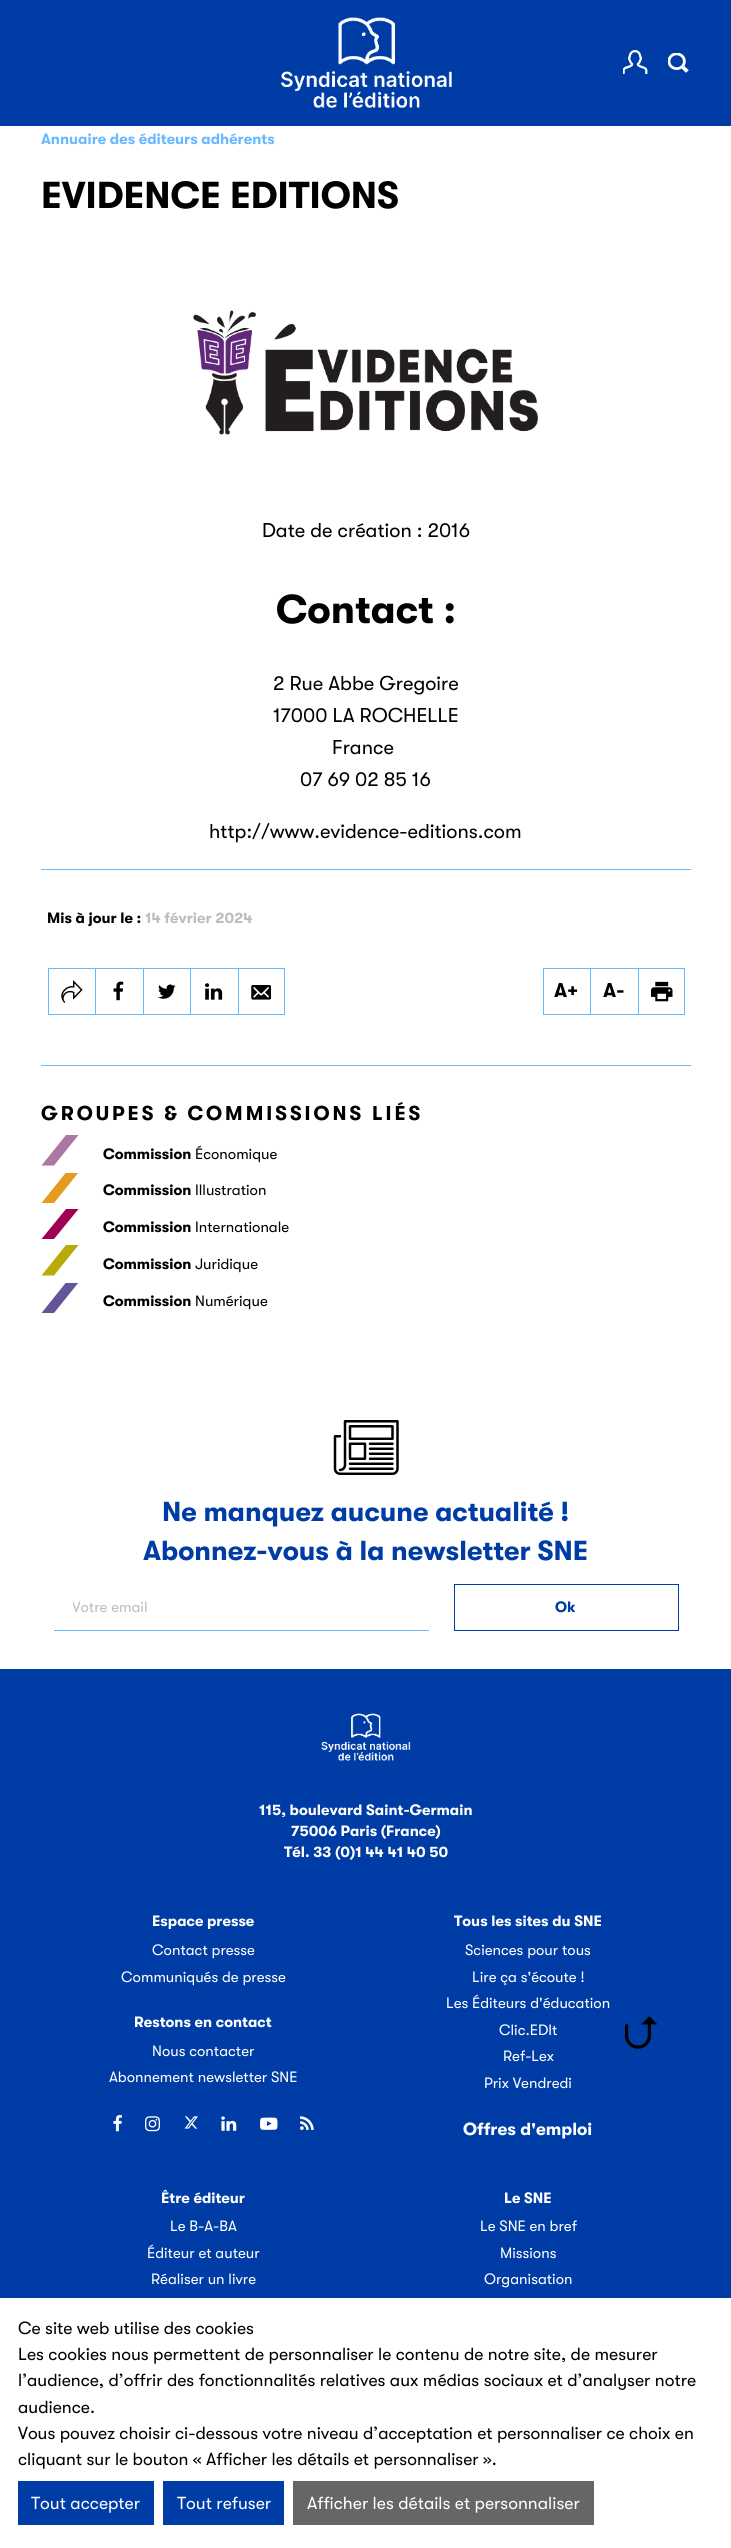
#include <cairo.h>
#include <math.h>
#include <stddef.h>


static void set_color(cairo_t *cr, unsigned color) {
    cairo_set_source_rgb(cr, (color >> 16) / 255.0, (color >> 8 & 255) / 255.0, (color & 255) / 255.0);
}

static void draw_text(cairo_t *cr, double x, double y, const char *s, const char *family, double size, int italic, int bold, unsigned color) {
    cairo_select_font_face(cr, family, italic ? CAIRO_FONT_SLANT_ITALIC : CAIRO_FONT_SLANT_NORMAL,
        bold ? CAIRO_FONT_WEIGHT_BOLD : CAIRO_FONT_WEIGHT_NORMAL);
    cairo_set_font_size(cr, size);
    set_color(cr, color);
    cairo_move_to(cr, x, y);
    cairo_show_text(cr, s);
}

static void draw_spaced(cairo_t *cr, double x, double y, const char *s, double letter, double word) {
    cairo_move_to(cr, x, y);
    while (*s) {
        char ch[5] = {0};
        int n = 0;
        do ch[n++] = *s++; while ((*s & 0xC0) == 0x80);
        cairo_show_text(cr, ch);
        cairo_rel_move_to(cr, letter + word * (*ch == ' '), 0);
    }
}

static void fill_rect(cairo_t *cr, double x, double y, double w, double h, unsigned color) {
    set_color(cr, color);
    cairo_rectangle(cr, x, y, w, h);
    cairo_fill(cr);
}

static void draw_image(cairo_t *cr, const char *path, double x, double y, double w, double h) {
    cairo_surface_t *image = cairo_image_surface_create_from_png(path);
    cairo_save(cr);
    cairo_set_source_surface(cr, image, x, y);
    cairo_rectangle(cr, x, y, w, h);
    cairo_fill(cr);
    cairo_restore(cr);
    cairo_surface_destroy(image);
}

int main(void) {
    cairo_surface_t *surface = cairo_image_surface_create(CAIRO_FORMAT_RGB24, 731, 2548);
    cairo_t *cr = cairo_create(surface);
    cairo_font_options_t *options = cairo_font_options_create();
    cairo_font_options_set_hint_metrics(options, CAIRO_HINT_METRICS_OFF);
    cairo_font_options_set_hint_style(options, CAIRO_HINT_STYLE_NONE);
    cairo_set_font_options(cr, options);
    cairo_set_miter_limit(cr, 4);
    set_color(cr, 0xFFFFFF);
    cairo_paint(cr);
    fill_rect(cr, 0, 0, 731, 126, 0x003CA5);
    draw_image(cr, "assets/img1.png", 281, 17, 171, 91);
    draw_image(cr, "assets/img2.png", 623, 50, 25, 24);
    draw_image(cr, "assets/img3.png", 668, 53, 21, 20);
    draw_text(cr, 41, 144, "Annuaire des éditeurs adhérents", "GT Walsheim", 15, 0, 1, 0x69B9FF);
    draw_text(cr, 41, 208, "EVIDENCE EDITIONS", "GT Walsheim", 37.5, 0, 1, 0x000000);
    draw_image(cr, "assets/img4.png", 193, 310, 345, 125);
    draw_text(cr, 262, 537, "Date de création : 2016", "GT Walsheim", 20, 0, 0, 0x000000);
    draw_text(cr, 276, 623, "Contact :", "GT Walsheim", 40, 0, 1, 0x000000);
    draw_text(cr, 273, 690, "2 Rue Abbe Gregoire", "GT Walsheim", 20, 0, 0, 0x000000);
    draw_text(cr, 273, 722, "17000 LA ROCHELLE", "GT Walsheim", 20, 0, 0, 0x000000);
    draw_text(cr, 332, 754, "France", "GT Walsheim", 20, 0, 0, 0x000000);
    draw_text(cr, 300, 786, "07 69 02 85 16", "GT Walsheim", 20, 0, 0, 0x000000);
    draw_text(cr, 209, 838, "http://www.evidence-editions.com", "GT Walsheim", 20, 0, 0, 0x000000);
    fill_rect(cr, 41, 869, 650, 1, 0x69B9FF);
    fill_rect(cr, 41, 1065, 650, 1, 0x69B9FF);
    draw_text(cr, 47, 923, "Mis à jour le :", "GT Walsheim", 15, 0, 1, 0x000000);
    draw_text(cr, 145, 923, "14 février 2024", "GT Walsheim", 15, 0, 1, 0xBEBEBE);
    draw_image(cr, "assets/img5.png", 61, 980, 22, 23);
    fill_rect(cr, 48, 968, 190, 1, 0x69B9FF);
    fill_rect(cr, 48, 1014, 190, 1, 0x69B9FF);
    fill_rect(cr, 48, 968, 1, 47, 0x69B9FF);
    fill_rect(cr, 95, 968, 1, 47, 0x69B9FF);
    draw_image(cr, "assets/img6.png", 113, 981, 11, 20);
    fill_rect(cr, 143, 968, 1, 47, 0x69B9FF);
    draw_image(cr, "assets/img7.png", 158, 984, 18, 15);
    fill_rect(cr, 190, 968, 1, 47, 0x69B9FF);
    draw_image(cr, "assets/img8.png", 205, 983, 18, 17);
    draw_image(cr, "assets/img9.png", 251, 985, 21, 15);
    cairo_rectangle(cr, 238.5, 968.5, 46, 46);
    cairo_set_line_width(cr, 1);
    cairo_stroke(cr);
    fill_rect(cr, 543, 968, 95, 1, 0x69B9FF);
    fill_rect(cr, 543, 1014, 95, 1, 0x69B9FF);
    fill_rect(cr, 543, 968, 1, 47, 0x69B9FF);
    draw_text(cr, 554, 997, "A+", "GT Walsheim", 20, 0, 1, 0x000000);
    fill_rect(cr, 590, 968, 1, 47, 0x69B9FF);
    draw_text(cr, 603, 997, "A-", "GT Walsheim", 20, 0, 1, 0x000000);
    draw_image(cr, "assets/img10.png", 651, 981, 22, 21);
    cairo_rectangle(cr, 638.5, 968.5, 46, 46);
    set_color(cr, 0x69B9FF);
    cairo_stroke(cr);
    set_color(cr, 0x000000);
    draw_spaced(cr, 41, 1120, "GROUPES & COMMISSIONS LIÉS", 3, 0);
    set_color(cr, 0xAC77A2);
    cairo_new_path(cr);
    cairo_move_to(cr, 54, 1165.5);
    cairo_line_to(cr, 41.5, 1165.5);
    cairo_line_to(cr, 66, 1135);
    cairo_line_to(cr, 78.5, 1135);
    cairo_close_path(cr);
    cairo_fill(cr);
    draw_text(cr, 103, 1159, "Commission", "GT Walsheim", 15, 0, 1, 0x000000);
    draw_text(cr, 195, 1159, "Économique", "GT Walsheim", 15, 0, 0, 0x000000);
    cairo_save(cr);
    cairo_rectangle(cr, 41, 1173, 38, 30);
    cairo_clip(cr);
    set_color(cr, 0xE39C1E);
    cairo_new_path(cr);
    cairo_move_to(cr, 54, 1203);
    cairo_line_to(cr, 41.5, 1203);
    cairo_line_to(cr, 66, 1172.5);
    cairo_line_to(cr, 78.5, 1172.5);
    cairo_close_path(cr);
    cairo_fill(cr);
    cairo_restore(cr);
    draw_text(cr, 103, 1195, "Commission", "GT Walsheim", 15, 0, 1, 0x000000);
    draw_text(cr, 195, 1195, "Illustration", "GT Walsheim", 15, 0, 0, 0x000000);
    set_color(cr, 0xA00053);
    cairo_new_path(cr);
    cairo_move_to(cr, 54, 1239);
    cairo_line_to(cr, 41.5, 1239);
    cairo_line_to(cr, 66, 1209);
    cairo_line_to(cr, 78.5, 1209);
    cairo_close_path(cr);
    cairo_fill(cr);
    draw_text(cr, 103, 1232, "Commission", "GT Walsheim", 15, 0, 1, 0x000000);
    draw_text(cr, 195, 1232, "Internationale", "GT Walsheim", 15, 0, 0, 0x000000);
    set_color(cr, 0xB7AA09);
    cairo_new_path(cr);
    cairo_move_to(cr, 54, 1275.5);
    cairo_line_to(cr, 41.5, 1275.5);
    cairo_line_to(cr, 66, 1245);
    cairo_line_to(cr, 78.5, 1245);
    cairo_close_path(cr);
    cairo_fill(cr);
    draw_text(cr, 103, 1269, "Commission", "GT Walsheim", 15, 0, 1, 0x000000);
    draw_text(cr, 195, 1269, "Juridique", "GT Walsheim", 15, 0, 0, 0x000000);
    cairo_save(cr);
    cairo_rectangle(cr, 41, 1283, 38, 30);
    cairo_clip(cr);
    set_color(cr, 0x635598);
    cairo_new_path(cr);
    cairo_move_to(cr, 54, 1313);
    cairo_line_to(cr, 41.5, 1313);
    cairo_line_to(cr, 66, 1282.5);
    cairo_line_to(cr, 78.5, 1282.5);
    cairo_close_path(cr);
    cairo_fill(cr);
    cairo_restore(cr);
    draw_text(cr, 103, 1306, "Commission", "GT Walsheim", 15, 0, 1, 0x000000);
    draw_text(cr, 195, 1306, "Numérique", "GT Walsheim", 15, 0, 0, 0x000000);
    draw_image(cr, "assets/img11.png", 333, 1420, 66, 55);
    draw_text(cr, 162, 1521, "Ne manquez aucune actualité !", "GT Walsheim", 27.5, 0, 1, 0x003CA5);
    draw_text(cr, 143, 1560, "Abonnez-vous à la newsletter SNE", "GT Walsheim", 27.5, 0, 1, 0x003CA5);
    fill_rect(cr, 54, 1630, 375, 1, 0x69B9FF);
    cairo_save(cr);
    cairo_rectangle(cr, 73, 1598, 337, 17);
    cairo_clip(cr);
    draw_text(cr, 72, 1612, "Votre email", "GT Walsheim", 15, 0, 0, 0xBEBEBE);
    cairo_restore(cr);
    cairo_rectangle(cr, 454.5, 1584.5, 224, 46);
    set_color(cr, 0x003CA5);
    cairo_stroke(cr);
    draw_text(cr, 555, 1612, "Ok", "GT Walsheim", 15, 0, 1, 0x003CA5);
    fill_rect(cr, 0, 1669, 731, 629, 0x003CA5);
    draw_image(cr, "assets/img12.png", 321, 1713, 90, 48);
    draw_text(cr, 259, 1815, "115, boulevard Saint-Germain", "GT Walsheim", 15, 0, 1, 0xFFFFFF);
    draw_text(cr, 291, 1836, "75006 Paris (France)", "GT Walsheim", 15, 0, 1, 0xFFFFFF);
    draw_text(cr, 284, 1857, "Tél. 33 (0)1 44 41 40 50", "GT Walsheim", 15, 0, 1, 0xFFFFFF);
    draw_text(cr, 152, 1926, "Espace presse", "GT Walsheim", 15, 0, 1, 0xFFFFFF);
    draw_text(cr, 152, 1955, "Contact presse", "GT Walsheim", 15, 0, 0, 0xFFFFFF);
    draw_text(cr, 121, 1982, "Communiqués de presse", "GT Walsheim", 15, 0, 0, 0xFFFFFF);
    draw_text(cr, 134, 2027, "Restons en contact", "GT Walsheim", 15, 0, 1, 0xFFFFFF);
    draw_text(cr, 152, 2056, "Nous contacter", "GT Walsheim", 15, 0, 0, 0xFFFFFF);
    draw_text(cr, 109, 2082, "Abonnement newsletter SNE", "GT Walsheim", 15, 0, 0, 0xFFFFFF);
    draw_image(cr, "assets/img13.png", 113, 2115, 9, 17);
    draw_image(cr, "assets/img14.png", 145, 2116, 15, 16);
    draw_image(cr, "assets/img15.png", 184, 2116, 14, 13);
    draw_image(cr, "assets/img16.png", 221, 2116, 16, 15);
    draw_image(cr, "assets/img17.png", 260, 2117, 18, 13);
    draw_image(cr, "assets/img18.png", 300, 2116, 14, 14);
    draw_text(cr, 454, 1926, "Tous les sites du SNE", "GT Walsheim", 15, 0, 1, 0xFFFFFF);
    draw_text(cr, 465, 1955, "Sciences pour tous", "GT Walsheim", 15, 0, 0, 0xFFFFFF);
    draw_text(cr, 472, 1982, "Lire ça s'écoute !", "GT Walsheim", 15, 0, 0, 0xFFFFFF);
    draw_text(cr, 446, 2008, "Les Éditeurs d'éducation", "GT Walsheim", 15, 0, 0, 0xFFFFFF);
    draw_text(cr, 499, 2035, "Clic.EDIt", "GT Walsheim", 15, 0, 0, 0xFFFFFF);
    draw_text(cr, 503, 2061, "Ref-Lex", "GT Walsheim", 15, 0, 0, 0xFFFFFF);
    draw_text(cr, 484, 2088, "Prix Vendredi", "GT Walsheim", 15, 0, 0, 0xFFFFFF);
    draw_text(cr, 463, 2135, "Offres d'emploi", "GT Walsheim", 17.5, 0, 1, 0xFFFFFF);
    draw_text(cr, 161, 2203, "Être éditeur", "GT Walsheim", 15, 0, 1, 0xFFFFFF);
    draw_text(cr, 170, 2231, "Le B-A-BA", "GT Walsheim", 15, 0, 0, 0xFFFFFF);
    draw_text(cr, 147, 2258, "Éditeur et auteur", "GT Walsheim", 15, 0, 0, 0xFFFFFF);
    draw_text(cr, 151, 2284, "Réaliser un livre", "GT Walsheim", 15, 0, 0, 0xFFFFFF);
    draw_text(cr, 504, 2203, "Le SNE", "GT Walsheim", 15, 0, 1, 0xFFFFFF);
    draw_text(cr, 480, 2231, "Le SNE en bref", "GT Walsheim", 15, 0, 0, 0xFFFFFF);
    draw_text(cr, 500, 2258, "Missions", "GT Walsheim", 15, 0, 0, 0xFFFFFF);
    draw_text(cr, 484, 2284, "Organisation", "GT Walsheim", 15, 0, 0, 0xFFFFFF);
    draw_image(cr, "assets/img19.png", 625, 2016, 33, 33);
    draw_text(cr, 18, 2334, "Ce site web utilise des cookies", "GT Walsheim", 17.5, 0, 0, 0x000000);
    draw_text(cr, 18, 2360, "Les cookies nous permettent de personnaliser le contenu de notre site, de mesurer", "GT Walsheim", 17.5, 0, 0, 0x000000);
    draw_text(cr, 18, 2386, "l’audience, d’offrir des fonctionnalités relatives aux médias sociaux et d’analyser notre", "GT Walsheim", 17.5, 0, 0, 0x000000);
    draw_text(cr, 18, 2413, "audience.", "GT Walsheim", 17.5, 0, 0, 0x000000);
    draw_text(cr, 18, 2439, "Vous pouvez choisir ci-dessous votre niveau d’acceptation et personnaliser ce choix en", "GT Walsheim", 17.5, 0, 0, 0x000000);
    draw_text(cr, 18, 2465, "cliquant sur le bouton « Afficher les détails et personnaliser ».", "GT Walsheim", 17.5, 0, 0, 0x000000);
    fill_rect(cr, 18, 2481, 136, 44, 0x003CA5);
    draw_text(cr, 31, 2509, "Tout accepter", "GT Walsheim", 17.5, 0, 0, 0xFFFFFF);
    fill_rect(cr, 163, 2481, 121, 44, 0x003CA5);
    draw_text(cr, 177, 2509, "Tout refuser", "GT Walsheim", 17.5, 0, 0, 0xFFFFFF);
    fill_rect(cr, 293, 2481, 301, 44, 0x666666);
    draw_text(cr, 307, 2509, "Afficher les détails et personnaliser", "GT Walsheim", 17.5, 0, 0, 0xFFFFFF);
    cairo_surface_write_to_png(surface, "output.png");
    cairo_font_options_destroy(options);
    cairo_destroy(cr);
    cairo_surface_destroy(surface);
    return 0;
}
